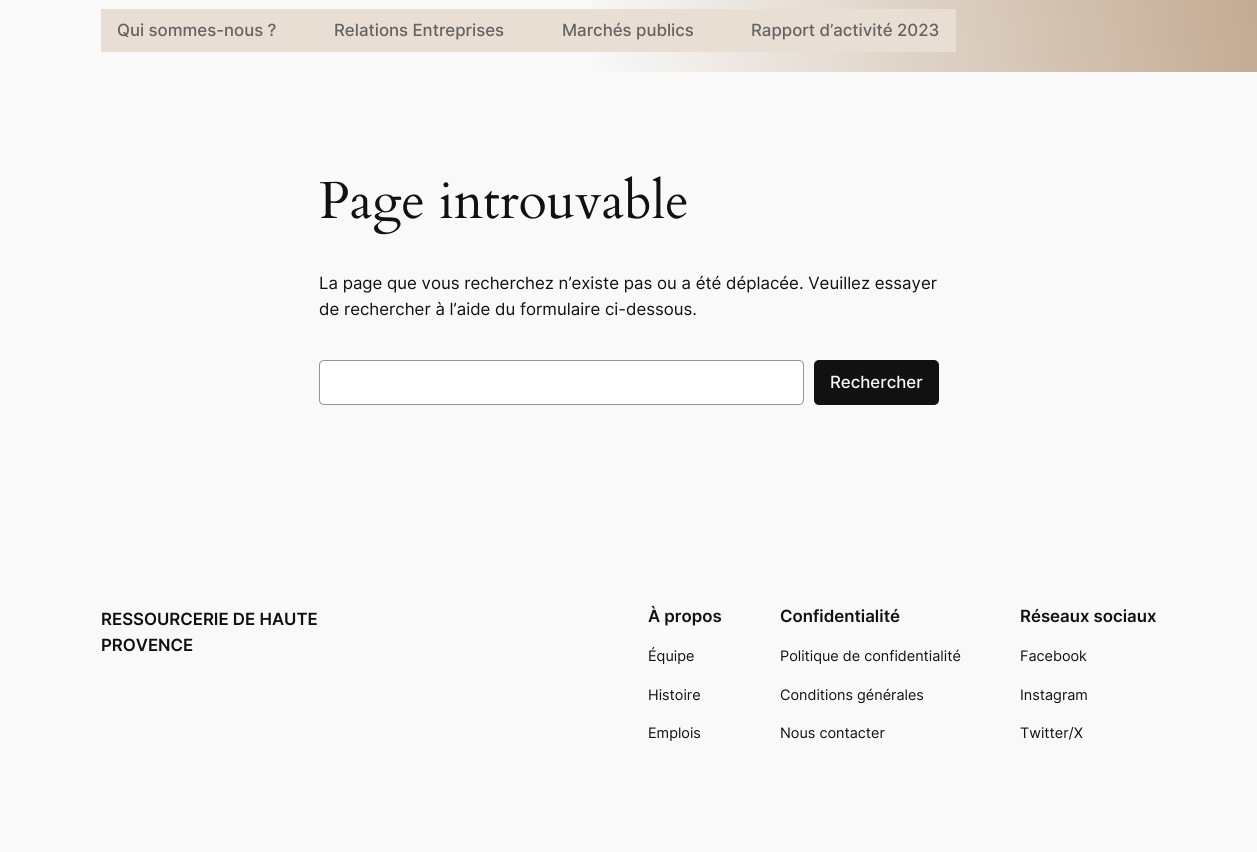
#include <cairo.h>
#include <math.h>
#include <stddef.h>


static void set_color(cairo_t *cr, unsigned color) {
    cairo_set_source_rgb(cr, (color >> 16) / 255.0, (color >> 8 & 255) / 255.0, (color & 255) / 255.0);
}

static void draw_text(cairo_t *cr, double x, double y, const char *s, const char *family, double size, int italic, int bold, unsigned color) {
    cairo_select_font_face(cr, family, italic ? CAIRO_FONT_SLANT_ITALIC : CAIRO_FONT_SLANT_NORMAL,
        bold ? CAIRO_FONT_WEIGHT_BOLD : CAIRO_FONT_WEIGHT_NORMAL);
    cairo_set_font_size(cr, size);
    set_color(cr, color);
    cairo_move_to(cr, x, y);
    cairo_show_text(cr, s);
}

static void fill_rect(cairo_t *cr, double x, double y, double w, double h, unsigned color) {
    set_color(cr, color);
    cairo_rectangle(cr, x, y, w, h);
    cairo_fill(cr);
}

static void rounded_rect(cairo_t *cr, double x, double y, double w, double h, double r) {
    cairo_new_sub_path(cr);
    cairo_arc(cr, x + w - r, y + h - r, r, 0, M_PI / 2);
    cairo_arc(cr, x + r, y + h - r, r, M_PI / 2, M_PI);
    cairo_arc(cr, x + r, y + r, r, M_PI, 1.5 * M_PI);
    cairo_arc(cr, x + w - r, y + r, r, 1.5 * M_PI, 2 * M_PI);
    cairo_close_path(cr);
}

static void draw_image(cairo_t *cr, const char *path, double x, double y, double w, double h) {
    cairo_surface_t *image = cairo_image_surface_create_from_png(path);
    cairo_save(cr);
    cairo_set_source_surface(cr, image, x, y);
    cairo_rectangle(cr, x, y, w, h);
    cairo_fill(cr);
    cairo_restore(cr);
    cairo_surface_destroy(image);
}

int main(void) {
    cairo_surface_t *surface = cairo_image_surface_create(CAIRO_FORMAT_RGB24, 1257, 852);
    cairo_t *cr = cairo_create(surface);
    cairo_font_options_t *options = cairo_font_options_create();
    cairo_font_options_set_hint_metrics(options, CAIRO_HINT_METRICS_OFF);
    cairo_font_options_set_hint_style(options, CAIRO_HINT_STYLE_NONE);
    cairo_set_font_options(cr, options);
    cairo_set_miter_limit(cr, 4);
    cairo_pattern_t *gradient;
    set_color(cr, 0xF9F9F9);
    cairo_paint(cr);
    gradient = cairo_pattern_create_linear(1250, -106, 7.3, 114);
    cairo_pattern_add_color_stop_rgba(gradient, 0, 0.761, 0.663, 0.565, 1);
    cairo_pattern_add_color_stop_rgba(gradient, 0.54, 0.976, 0.976, 0.976, 1);
    cairo_set_source(cr, gradient);
    cairo_pattern_destroy(gradient);
    cairo_rectangle(cr, 593, 0, 664, 72);
    cairo_fill(cr);
    fill_rect(cr, 101, 9, 855, 43, 0xE9DED3);
    draw_text(cr, 117, 36, "Qui sommes-nous ?", "Inter Medium", 16.8, 0, 0, 0x636363);
    draw_text(cr, 334, 36, "Relations Entreprises", "Inter Medium", 16.8, 0, 0, 0x636363);
    draw_text(cr, 562, 36, "Marchés publics", "Inter Medium", 16.8, 0, 0, 0x636363);
    draw_text(cr, 751, 36, "Rapport d’activité 2023", "Inter Medium", 16.8, 0, 0, 0x636363);
    draw_image(cr, "assets/img1.png", 320, 176, 367, 59);
    draw_text(cr, 319, 289, "La page que vous recherchez n’existe pas ou a été déplacée. Veuillez essayer", "Inter", 16.8, 0, 0, 0x111111);
    draw_text(cr, 319, 315, "de rechercher à l’aide du formulaire ci-dessous.", "Inter", 16.8, 0, 0, 0x111111);
    set_color(cr, 0xFFFFFF);
    rounded_rect(cr, 319.5, 360.5, 484, 44, 4.5);
    cairo_fill_preserve(cr);
    set_color(cr, 0x949494);
    cairo_set_line_width(cr, 1);
    cairo_stroke(cr);
    set_color(cr, 0x111111);
    rounded_rect(cr, 814, 360, 125, 45, 5);
    cairo_fill(cr);
    draw_text(cr, 830, 388, "Rechercher", "Inter Medium", 16.8, 0, 0, 0xF9F9F9);
    draw_text(cr, 101, 625, "RESSOURCERIE DE HAUTE", "Inter SemiBold", 16.8, 0, 0, 0x111111);
    draw_text(cr, 101, 651, "PROVENCE", "Inter SemiBold", 16.8, 0, 0, 0x111111);
    draw_text(cr, 648, 622, "À propos", "Inter SemiBold", 16.8, 0, 0, 0x111111);
    draw_text(cr, 648, 661, "Équipe", "Inter", 14.4, 0, 0, 0x111111);
    draw_text(cr, 648, 700, "Histoire", "Inter", 14.4, 0, 0, 0x111111);
    draw_text(cr, 648, 738, "Emplois", "Inter", 14.4, 0, 0, 0x111111);
    draw_text(cr, 780, 622, "Confidentialité", "Inter SemiBold", 16.8, 0, 0, 0x111111);
    draw_text(cr, 780, 661, "Politique de confidentialité", "Inter", 14.4, 0, 0, 0x111111);
    draw_text(cr, 780, 700, "Conditions générales", "Inter", 14.4, 0, 0, 0x111111);
    draw_text(cr, 780, 738, "Nous contacter", "Inter", 14.4, 0, 0, 0x111111);
    draw_text(cr, 1020, 622, "Réseaux sociaux", "Inter SemiBold", 16.8, 0, 0, 0x111111);
    draw_text(cr, 1020, 661, "Facebook", "Inter", 14.4, 0, 0, 0x111111);
    draw_text(cr, 1020, 700, "Instagram", "Inter", 14.4, 0, 0, 0x111111);
    draw_text(cr, 1020, 738, "Twitter/X", "Inter", 14.4, 0, 0, 0x111111);
    cairo_surface_write_to_png(surface, "output.png");
    cairo_font_options_destroy(options);
    cairo_destroy(cr);
    cairo_surface_destroy(surface);
    return 0;
}
